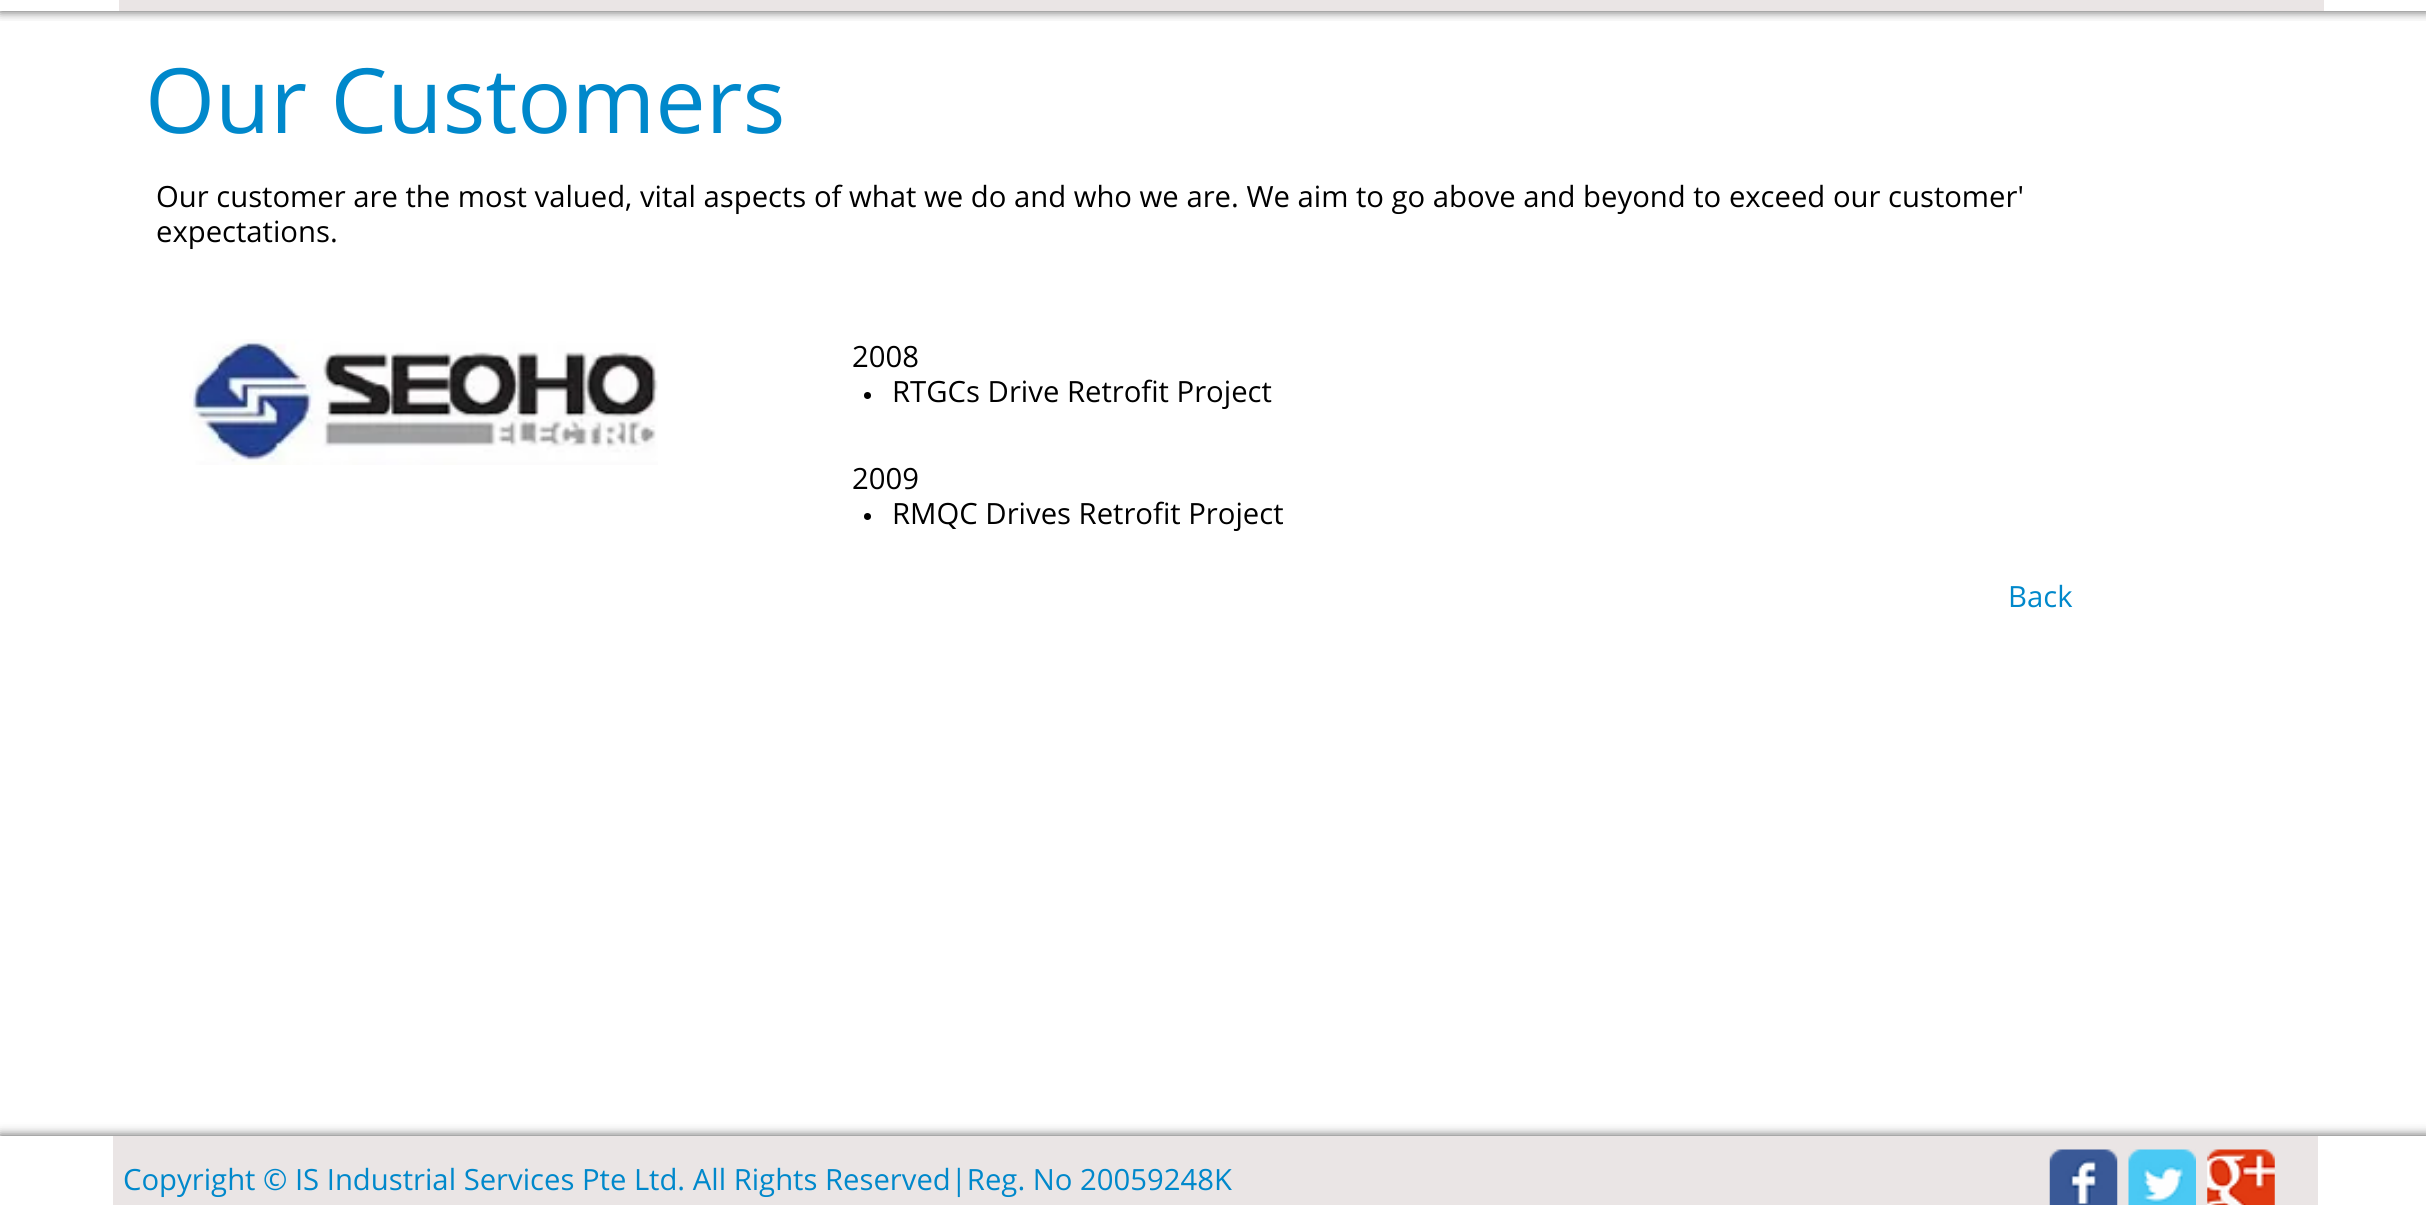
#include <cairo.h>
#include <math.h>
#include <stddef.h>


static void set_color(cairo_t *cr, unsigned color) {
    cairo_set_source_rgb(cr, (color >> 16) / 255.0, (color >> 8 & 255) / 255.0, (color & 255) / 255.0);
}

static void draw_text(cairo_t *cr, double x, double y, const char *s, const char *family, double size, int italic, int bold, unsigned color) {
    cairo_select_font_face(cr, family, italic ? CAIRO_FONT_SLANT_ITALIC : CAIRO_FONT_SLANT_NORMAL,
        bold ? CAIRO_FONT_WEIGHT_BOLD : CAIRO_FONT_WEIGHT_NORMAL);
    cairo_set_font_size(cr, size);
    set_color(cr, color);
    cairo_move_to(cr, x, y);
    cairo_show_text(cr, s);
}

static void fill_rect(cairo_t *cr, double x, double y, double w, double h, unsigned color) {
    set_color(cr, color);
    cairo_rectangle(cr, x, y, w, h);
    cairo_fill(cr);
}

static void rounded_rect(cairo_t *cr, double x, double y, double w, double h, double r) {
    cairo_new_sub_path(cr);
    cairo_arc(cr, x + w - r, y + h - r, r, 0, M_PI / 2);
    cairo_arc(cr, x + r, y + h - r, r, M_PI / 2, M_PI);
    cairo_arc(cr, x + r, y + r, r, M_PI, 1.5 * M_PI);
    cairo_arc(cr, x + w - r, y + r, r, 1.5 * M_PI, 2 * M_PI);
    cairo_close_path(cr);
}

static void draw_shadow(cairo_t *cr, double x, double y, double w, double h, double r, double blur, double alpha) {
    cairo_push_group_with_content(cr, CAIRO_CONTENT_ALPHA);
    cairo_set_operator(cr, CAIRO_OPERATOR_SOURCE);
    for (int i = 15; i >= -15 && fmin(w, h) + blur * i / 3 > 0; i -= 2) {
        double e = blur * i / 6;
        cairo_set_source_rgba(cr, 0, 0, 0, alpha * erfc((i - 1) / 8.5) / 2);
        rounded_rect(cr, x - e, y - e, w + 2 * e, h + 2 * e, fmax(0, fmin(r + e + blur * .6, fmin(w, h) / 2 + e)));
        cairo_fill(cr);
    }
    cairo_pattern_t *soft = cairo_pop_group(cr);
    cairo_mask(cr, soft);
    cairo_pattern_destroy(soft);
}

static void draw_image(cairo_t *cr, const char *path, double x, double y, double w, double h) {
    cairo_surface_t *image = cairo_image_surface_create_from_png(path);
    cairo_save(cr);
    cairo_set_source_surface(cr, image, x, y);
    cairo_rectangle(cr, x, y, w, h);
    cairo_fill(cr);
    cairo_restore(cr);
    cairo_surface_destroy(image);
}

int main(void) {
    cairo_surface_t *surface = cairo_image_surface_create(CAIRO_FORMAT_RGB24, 2426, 1205);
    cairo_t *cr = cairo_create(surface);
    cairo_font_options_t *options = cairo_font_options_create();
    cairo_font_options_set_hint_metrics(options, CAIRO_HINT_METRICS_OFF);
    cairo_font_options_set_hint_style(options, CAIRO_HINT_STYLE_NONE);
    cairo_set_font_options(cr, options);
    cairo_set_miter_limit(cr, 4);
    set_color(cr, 0xFFFFFF);
    cairo_paint(cr);
    cairo_save(cr);
    cairo_rectangle(cr, 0, 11, 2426, 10);
    cairo_clip(cr);
    set_color(cr, 0x000000);
    draw_shadow(cr, 0, -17, 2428, 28, 0, 5.5, 0.7);
    cairo_restore(cr);
    fill_rect(cr, 119, 0, 2205, 11, 0xEAE5E5);
    draw_text(cr, 145, 133, "Our Customers", "Open Sans", 90, 0, 0, 0x0088CB);
    draw_text(cr, 156, 207, "Our customer are the most valued, vital aspects of what we do and who we are. We aim to go above and beyond to exceed our customer'", "Open Sans", 29.25, 0, 0, 0x000000);
    draw_text(cr, 156, 242, "expectations.", "Open Sans", 29.25, 0, 0, 0x000000);
    draw_image(cr, "assets/img1.png", 189, 339, 469, 126);
    draw_text(cr, 852, 367, "2008", "Open Sans", 29.25, 0, 0, 0x000000);
    cairo_new_path(cr);
    cairo_arc(cr, 867.5, 395.5, 3.5, 0, 2 * M_PI);
    cairo_fill(cr);
    draw_text(cr, 892, 402, "RTGCs Drive Retrofit Project", "Open Sans", 29.25, 0, 0, 0x000000);
    draw_text(cr, 852, 489, "2009", "Open Sans", 29.25, 0, 0, 0x000000);
    cairo_new_path(cr);
    cairo_arc(cr, 867.5, 516.5, 3.5, 0, 2 * M_PI);
    cairo_fill(cr);
    draw_text(cr, 892, 524, "RMQC Drives Retrofit Project", "Open Sans", 29.25, 0, 0, 0x000000);
    draw_text(cr, 2008, 607, "Back", "Open Sans", 29.25, 0, 0, 0x0088CB);
    set_color(cr, 0x000000);
    draw_shadow(cr, 0, 1136, 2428, 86, 0, 5.5, 0.7);
    fill_rect(cr, 0, 1136, 2426, 69, 0xFFFFFF);
    fill_rect(cr, 113, 1136, 2205, 69, 0xEAE5E5);
    draw_image(cr, "assets/img2.png", 2049, 1149, 69, 56);
    draw_image(cr, "assets/img3.png", 2128, 1149, 68, 56);
    draw_image(cr, "assets/img4.png", 2207, 1149, 68, 56);
    draw_text(cr, 123, 1190, "Copyright © IS Industrial Services Pte Ltd. All Rights Reserved|Reg. No 20059248K", "Open Sans", 29.25, 0, 0, 0x0088CB);
    cairo_surface_write_to_png(surface, "output.png");
    cairo_font_options_destroy(options);
    cairo_destroy(cr);
    cairo_surface_destroy(surface);
    return 0;
}
